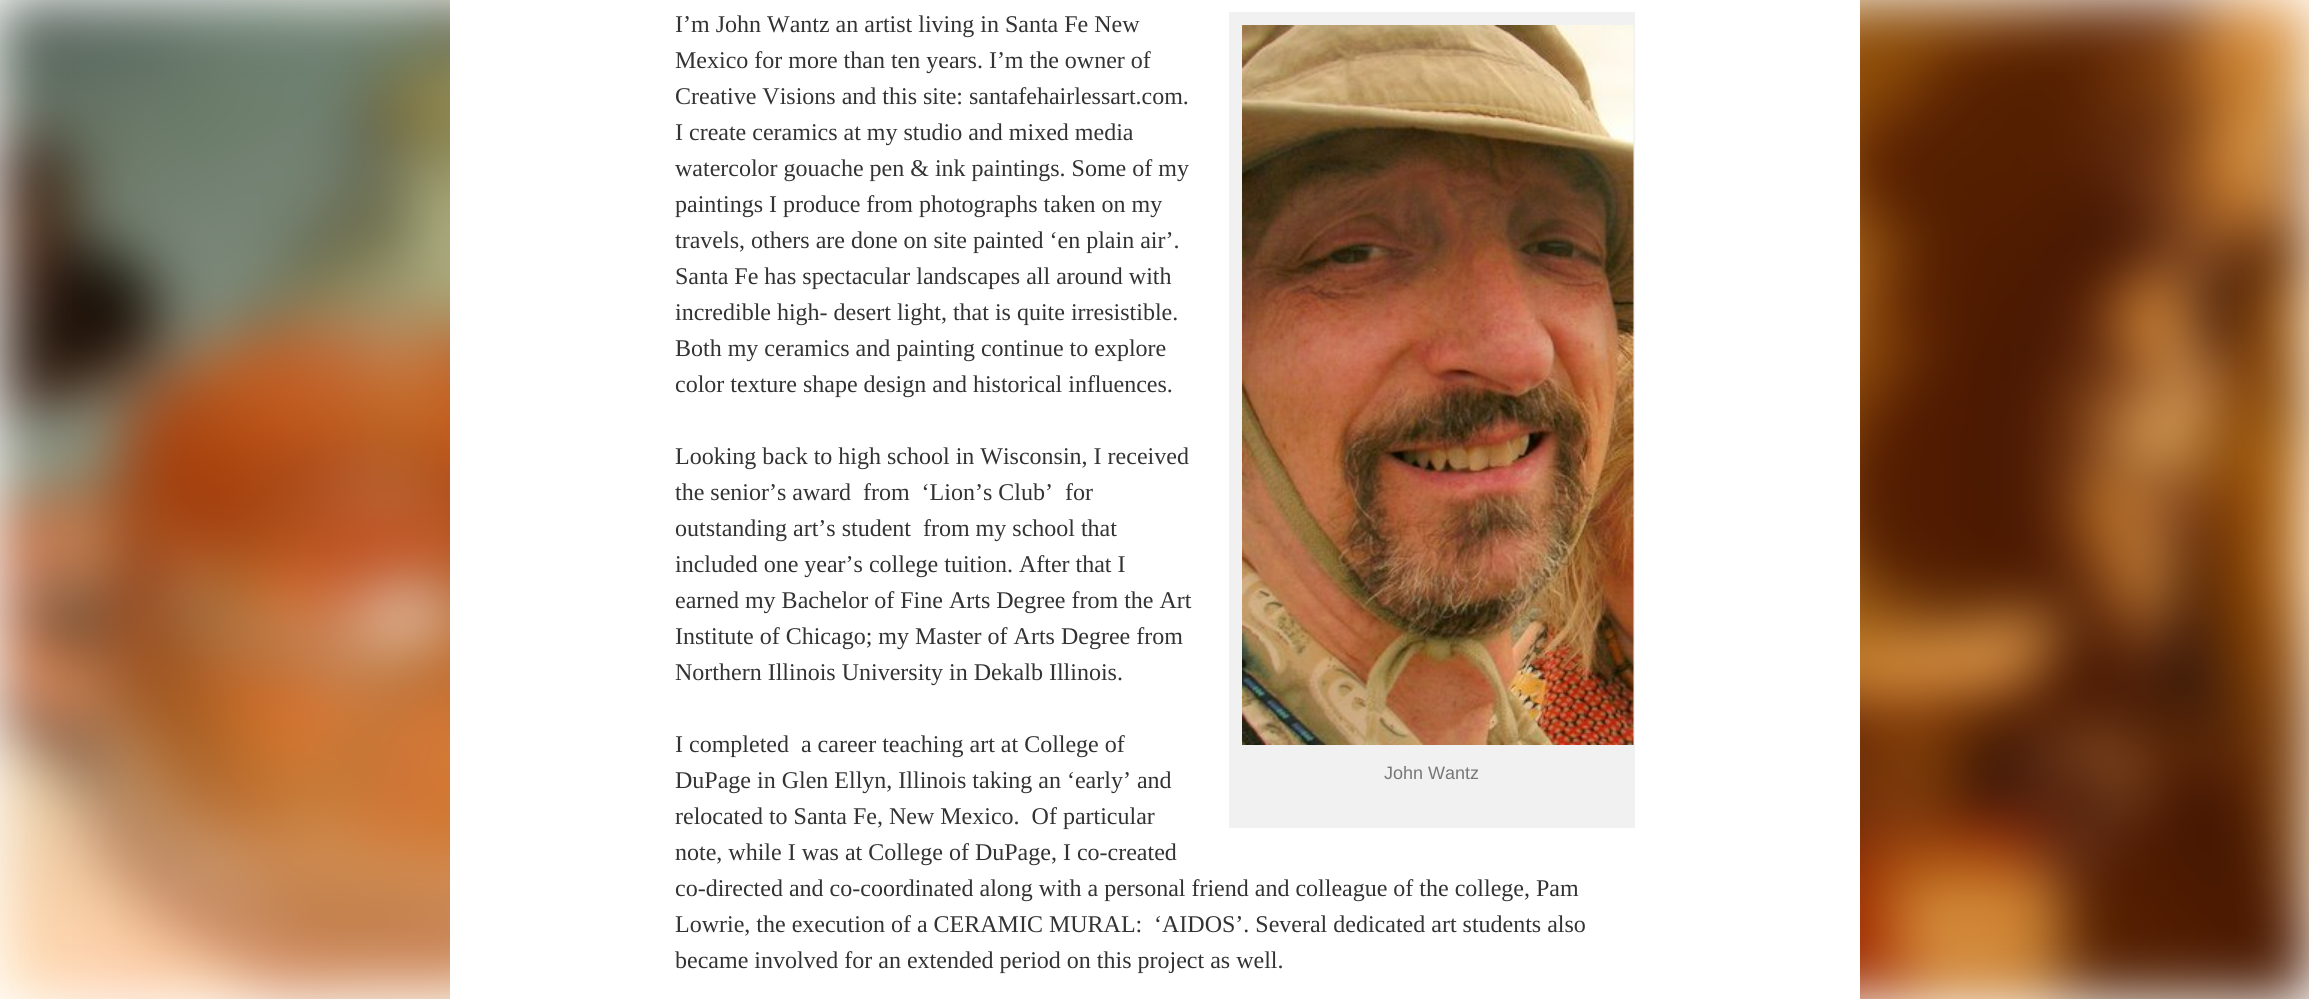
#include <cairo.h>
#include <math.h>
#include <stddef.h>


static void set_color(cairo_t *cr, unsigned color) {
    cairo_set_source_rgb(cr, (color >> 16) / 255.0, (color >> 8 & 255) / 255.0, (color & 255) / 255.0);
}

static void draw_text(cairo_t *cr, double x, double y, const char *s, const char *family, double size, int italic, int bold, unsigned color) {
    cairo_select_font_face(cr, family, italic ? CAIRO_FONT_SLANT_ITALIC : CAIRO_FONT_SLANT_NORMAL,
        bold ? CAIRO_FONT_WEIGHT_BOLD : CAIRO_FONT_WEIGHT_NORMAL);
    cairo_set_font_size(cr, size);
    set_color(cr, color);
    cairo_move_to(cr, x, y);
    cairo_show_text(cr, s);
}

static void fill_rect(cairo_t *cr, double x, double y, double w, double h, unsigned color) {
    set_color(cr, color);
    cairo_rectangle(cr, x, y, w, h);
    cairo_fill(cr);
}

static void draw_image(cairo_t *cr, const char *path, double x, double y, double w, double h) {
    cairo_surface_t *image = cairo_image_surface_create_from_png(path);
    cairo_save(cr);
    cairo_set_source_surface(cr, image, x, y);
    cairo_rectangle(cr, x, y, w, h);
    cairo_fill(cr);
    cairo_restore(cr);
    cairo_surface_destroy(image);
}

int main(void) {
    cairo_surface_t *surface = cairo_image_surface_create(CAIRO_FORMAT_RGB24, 2309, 999);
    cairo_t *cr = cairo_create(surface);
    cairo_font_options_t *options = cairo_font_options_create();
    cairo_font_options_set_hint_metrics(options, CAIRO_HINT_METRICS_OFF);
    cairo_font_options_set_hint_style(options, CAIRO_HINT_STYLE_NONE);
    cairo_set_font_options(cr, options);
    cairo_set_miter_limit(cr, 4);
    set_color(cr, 0xFFFFFF);
    cairo_paint(cr);
    draw_image(cr, "assets/img1.png", 0, 0, 2309, 999);
    fill_rect(cr, 450, 0, 1410, 999, 0xFFFFFF);
    draw_text(cr, 675, 32, "I’m John Wantz an artist living in Santa Fe New", "Liberation Serif", 24, 0, 0, 0x333333);
    draw_text(cr, 675, 68, "Mexico for more than ten years. I’m the owner of", "Liberation Serif", 24, 0, 0, 0x333333);
    draw_text(cr, 675, 104, "Creative Visions and this site: santafehairlessart.com.", "Liberation Serif", 24, 0, 0, 0x333333);
    draw_text(cr, 675, 140, "I create ceramics at my studio and mixed media", "Liberation Serif", 24, 0, 0, 0x333333);
    draw_text(cr, 675, 176, "watercolor gouache pen & ink paintings. Some of my", "Liberation Serif", 24, 0, 0, 0x333333);
    draw_text(cr, 675, 212, "paintings I produce from photographs taken on my", "Liberation Serif", 24, 0, 0, 0x333333);
    draw_text(cr, 675, 248, "travels, others are done on site painted ‘en plain air’.", "Liberation Serif", 24, 0, 0, 0x333333);
    draw_text(cr, 675, 284, "Santa Fe has spectacular landscapes all around with", "Liberation Serif", 24, 0, 0, 0x333333);
    draw_text(cr, 675, 320, "incredible high- desert light, that is quite irresistible.", "Liberation Serif", 24, 0, 0, 0x333333);
    draw_text(cr, 675, 356, "Both my ceramics and painting continue to explore", "Liberation Serif", 24, 0, 0, 0x333333);
    draw_text(cr, 675, 392, "color texture shape design and historical influences.", "Liberation Serif", 24, 0, 0, 0x333333);
    draw_text(cr, 675, 464, "Looking back to high school in Wisconsin, I received", "Liberation Serif", 24, 0, 0, 0x333333);
    draw_text(cr, 675, 500, "the senior’s award  from  ‘Lion’s Club’  for", "Liberation Serif", 24, 0, 0, 0x333333);
    draw_text(cr, 675, 536, "outstanding art’s student  from my school that", "Liberation Serif", 24, 0, 0, 0x333333);
    draw_text(cr, 675, 572, "included one year’s college tuition. After that I", "Liberation Serif", 24, 0, 0, 0x333333);
    draw_text(cr, 675, 608, "earned my Bachelor of Fine Arts Degree from the Art", "Liberation Serif", 24, 0, 0, 0x333333);
    draw_text(cr, 675, 644, "Institute of Chicago; my Master of Arts Degree from", "Liberation Serif", 24, 0, 0, 0x333333);
    draw_text(cr, 675, 680, "Northern Illinois University in Dekalb Illinois.", "Liberation Serif", 24, 0, 0, 0x333333);
    draw_text(cr, 675, 752, "I completed  a career teaching art at College of", "Liberation Serif", 24, 0, 0, 0x333333);
    draw_text(cr, 675, 788, "DuPage in Glen Ellyn, Illinois taking an ‘early’ and", "Liberation Serif", 24, 0, 0, 0x333333);
    draw_text(cr, 675, 824, "relocated to Santa Fe, New Mexico.  Of particular", "Liberation Serif", 24, 0, 0, 0x333333);
    draw_text(cr, 675, 860, "note, while I was at College of DuPage, I co-created", "Liberation Serif", 24, 0, 0, 0x333333);
    draw_text(cr, 675, 896, "co-directed and co-coordinated along with a personal friend and colleague of the college, Pam", "Liberation Serif", 24, 0, 0, 0x333333);
    draw_text(cr, 675, 932, "Lowrie, the execution of a CERAMIC MURAL:", "Liberation Serif", 24, 0, 0, 0x333333);
    draw_text(cr, 1154, 932, "‘AIDOS’. Several dedicated art students also", "Liberation Serif", 24, 0, 0, 0x333333);
    draw_text(cr, 675, 968, "became involved for an extended period on this project as well.", "Liberation Serif", 24, 0, 0, 0x333333);
    fill_rect(cr, 1229, 12, 406, 816, 0xF1F1F1);
    draw_image(cr, "assets/img2.png", 1242, 25, 392, 720);
    draw_text(cr, 1384, 779, "John Wantz", "Liberation Sans", 18, 0, 0, 0x777777);
    cairo_surface_write_to_png(surface, "output.png");
    cairo_font_options_destroy(options);
    cairo_destroy(cr);
    cairo_surface_destroy(surface);
    return 0;
}
